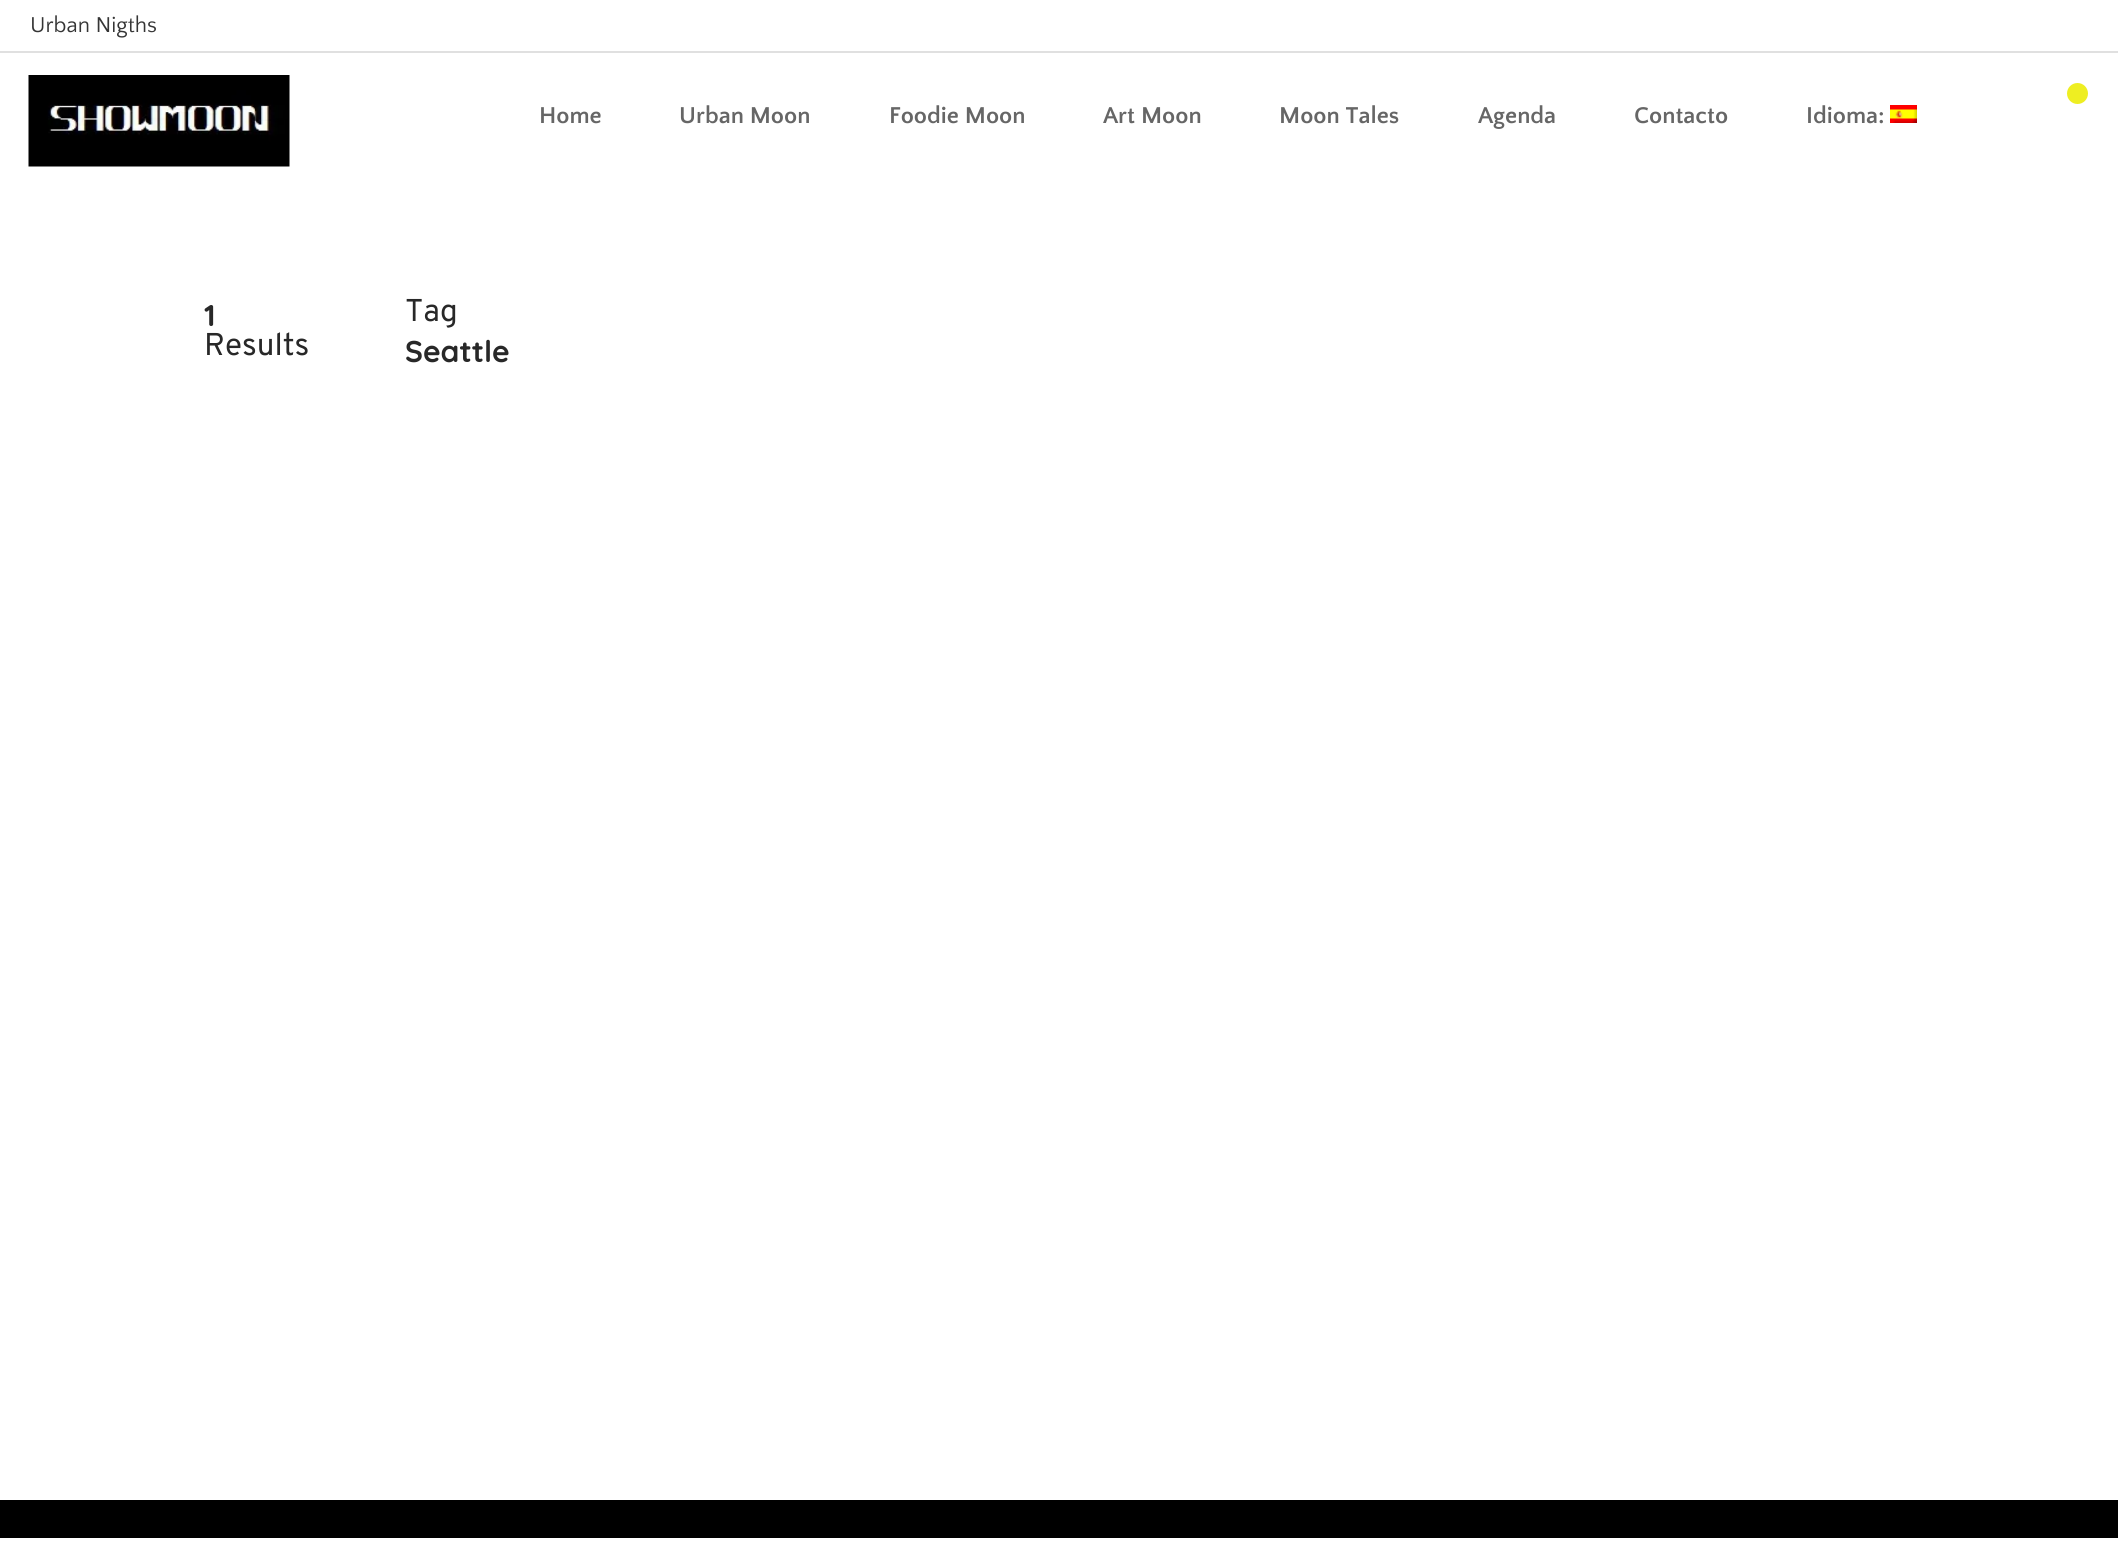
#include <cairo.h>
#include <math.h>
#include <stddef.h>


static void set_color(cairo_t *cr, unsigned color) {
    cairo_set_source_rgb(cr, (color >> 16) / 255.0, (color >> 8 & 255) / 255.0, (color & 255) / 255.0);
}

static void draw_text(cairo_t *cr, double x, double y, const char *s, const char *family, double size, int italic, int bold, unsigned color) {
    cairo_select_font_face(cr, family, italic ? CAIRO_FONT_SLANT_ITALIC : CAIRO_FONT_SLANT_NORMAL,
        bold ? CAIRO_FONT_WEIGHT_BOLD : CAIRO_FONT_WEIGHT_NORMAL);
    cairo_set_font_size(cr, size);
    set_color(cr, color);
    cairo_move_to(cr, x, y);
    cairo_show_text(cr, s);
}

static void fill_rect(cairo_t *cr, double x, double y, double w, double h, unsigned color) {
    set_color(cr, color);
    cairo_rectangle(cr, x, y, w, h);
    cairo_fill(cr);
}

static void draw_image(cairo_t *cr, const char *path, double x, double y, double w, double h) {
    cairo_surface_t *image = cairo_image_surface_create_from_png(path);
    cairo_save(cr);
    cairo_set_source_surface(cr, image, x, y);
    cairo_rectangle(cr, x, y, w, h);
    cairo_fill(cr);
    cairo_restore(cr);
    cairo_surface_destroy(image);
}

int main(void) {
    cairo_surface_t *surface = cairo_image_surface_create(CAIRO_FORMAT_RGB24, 2118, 1554);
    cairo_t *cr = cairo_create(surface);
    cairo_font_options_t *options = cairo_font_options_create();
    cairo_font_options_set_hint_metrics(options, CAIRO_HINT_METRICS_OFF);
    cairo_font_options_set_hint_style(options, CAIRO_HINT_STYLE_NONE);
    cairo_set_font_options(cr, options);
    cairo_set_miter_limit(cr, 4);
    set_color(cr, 0x000000);
    cairo_paint(cr);
    fill_rect(cr, 0, 0, 2118, 1500, 0xFFFFFF);
    fill_rect(cr, 0, 51, 2118, 2, 0xE0E0E0);
    draw_text(cr, 30, 32, "Urban Nigths", "Quattrocento Sans", 22.5, 0, 0, 0x353535);
    draw_image(cr, "assets/img1.png", 28, 75, 262, 92);
    set_color(cr, 0xEEEE22);
    cairo_arc(cr, 2077.5, 93.5, 10.5, 0, 2 * M_PI);
    cairo_fill(cr);
    draw_text(cr, 539, 123, "Home", "Quattrocento Sans", 24, 0, 1, 0x666666);
    draw_text(cr, 679, 123, "Urban Moon", "Quattrocento Sans", 24, 0, 1, 0x666666);
    draw_text(cr, 889, 123, "Foodie Moon", "Quattrocento Sans", 24, 0, 1, 0x666666);
    draw_text(cr, 1103, 123, "Art Moon", "Quattrocento Sans", 24, 0, 1, 0x666666);
    draw_text(cr, 1279, 123, "Moon Tales", "Quattrocento Sans", 24, 0, 1, 0x666666);
    draw_text(cr, 1478, 123, "Agenda", "Quattrocento Sans", 24, 0, 1, 0x666666);
    draw_text(cr, 1634, 123, "Contacto", "Quattrocento Sans", 24, 0, 1, 0x666666);
    draw_text(cr, 1806, 123, "Idioma:", "Quattrocento Sans", 24, 0, 1, 0x666666);
    draw_image(cr, "assets/img2.png", 1890, 105, 27, 18);
    draw_text(cr, 204, 326, "1", "Quicksand Light", 30, 0, 0, 0x282828);
    draw_text(cr, 204, 355, "Results", "Overpass", 31.5, 0, 0, 0x282828);
    draw_text(cr, 405, 321, "Tag", "Overpass", 31.5, 0, 0, 0x282828);
    draw_text(cr, 405, 362, "Seattle", "Quicksand Light", 30, 0, 0, 0x282828);
    fill_rect(cr, 0, 1538, 2118, 16, 0xFFFFFF);
    cairo_surface_write_to_png(surface, "output.png");
    cairo_font_options_destroy(options);
    cairo_destroy(cr);
    cairo_surface_destroy(surface);
    return 0;
}
